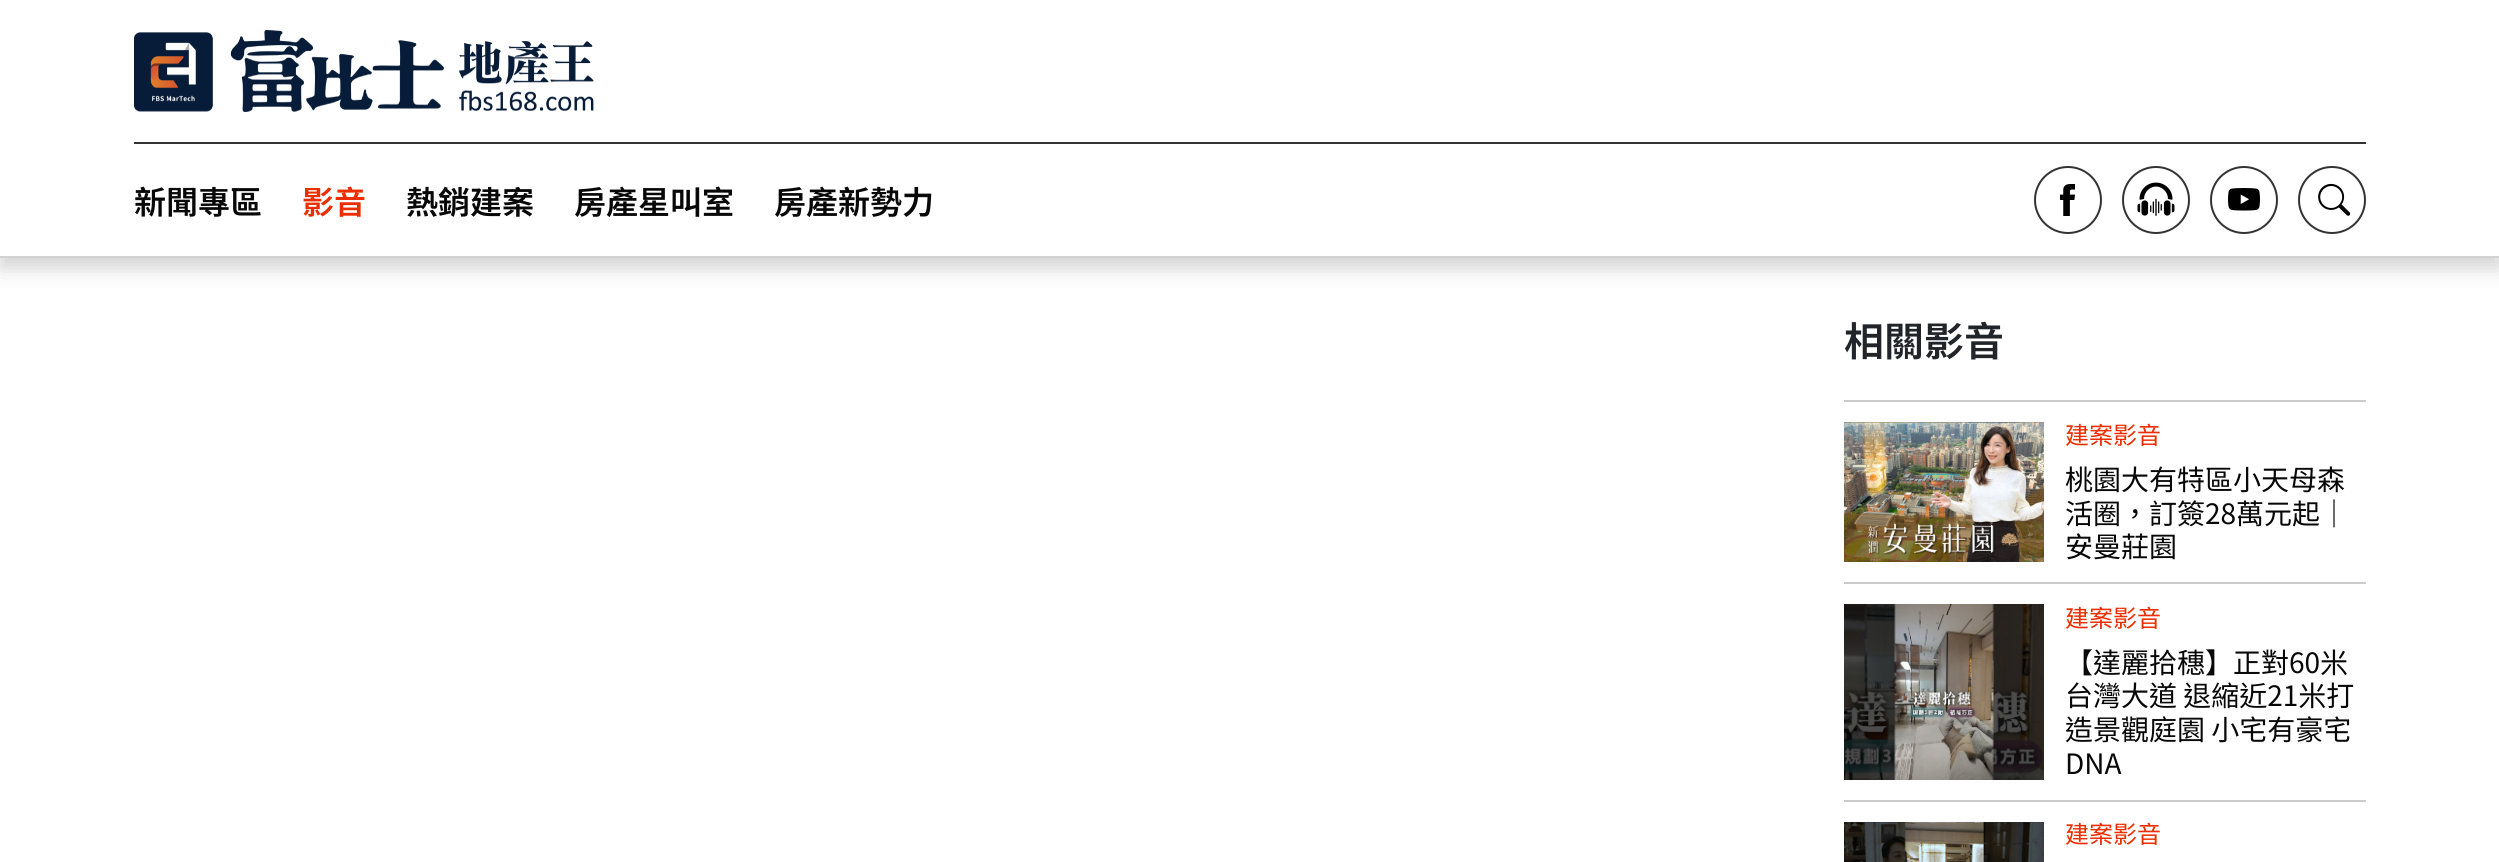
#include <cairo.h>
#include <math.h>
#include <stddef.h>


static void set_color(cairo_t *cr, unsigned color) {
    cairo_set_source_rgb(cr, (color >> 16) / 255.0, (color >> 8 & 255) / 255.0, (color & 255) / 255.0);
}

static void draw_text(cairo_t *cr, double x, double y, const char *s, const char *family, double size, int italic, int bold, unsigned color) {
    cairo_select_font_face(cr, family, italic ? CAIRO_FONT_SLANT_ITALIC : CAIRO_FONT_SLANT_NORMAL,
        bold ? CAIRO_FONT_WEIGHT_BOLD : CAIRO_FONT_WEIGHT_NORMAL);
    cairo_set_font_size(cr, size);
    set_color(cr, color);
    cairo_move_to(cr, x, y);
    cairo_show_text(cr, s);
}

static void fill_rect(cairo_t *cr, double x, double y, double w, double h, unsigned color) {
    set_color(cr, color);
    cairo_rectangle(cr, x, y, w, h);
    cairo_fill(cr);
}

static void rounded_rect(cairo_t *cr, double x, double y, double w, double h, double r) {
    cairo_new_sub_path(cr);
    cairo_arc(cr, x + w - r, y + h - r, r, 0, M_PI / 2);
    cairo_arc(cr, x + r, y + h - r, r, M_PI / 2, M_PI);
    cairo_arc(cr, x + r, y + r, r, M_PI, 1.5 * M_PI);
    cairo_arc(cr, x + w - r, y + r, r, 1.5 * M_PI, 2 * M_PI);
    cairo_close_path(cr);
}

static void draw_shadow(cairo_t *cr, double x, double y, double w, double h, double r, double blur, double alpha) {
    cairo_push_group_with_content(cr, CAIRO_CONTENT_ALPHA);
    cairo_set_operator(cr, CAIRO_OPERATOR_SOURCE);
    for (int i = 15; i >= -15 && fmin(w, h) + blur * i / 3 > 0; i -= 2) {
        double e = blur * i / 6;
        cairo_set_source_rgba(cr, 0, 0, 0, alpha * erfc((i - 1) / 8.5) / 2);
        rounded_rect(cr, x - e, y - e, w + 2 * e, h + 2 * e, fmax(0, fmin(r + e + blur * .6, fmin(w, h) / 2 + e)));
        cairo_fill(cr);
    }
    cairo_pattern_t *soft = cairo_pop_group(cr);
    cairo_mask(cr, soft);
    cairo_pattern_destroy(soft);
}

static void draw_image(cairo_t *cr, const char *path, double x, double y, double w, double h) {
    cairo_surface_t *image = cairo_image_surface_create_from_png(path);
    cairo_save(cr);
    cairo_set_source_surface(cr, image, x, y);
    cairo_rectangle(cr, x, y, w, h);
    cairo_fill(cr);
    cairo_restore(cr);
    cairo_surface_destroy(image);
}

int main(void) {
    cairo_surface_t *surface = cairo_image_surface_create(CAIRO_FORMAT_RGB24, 2499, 862);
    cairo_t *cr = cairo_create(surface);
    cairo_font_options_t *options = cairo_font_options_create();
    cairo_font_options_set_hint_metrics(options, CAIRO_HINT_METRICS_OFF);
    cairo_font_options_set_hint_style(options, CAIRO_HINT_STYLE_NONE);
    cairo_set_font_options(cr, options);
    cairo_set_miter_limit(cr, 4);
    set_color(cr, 0xFFFFFF);
    cairo_paint(cr);
    cairo_save(cr);
    cairo_rectangle(cr, 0, 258, 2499, 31);
    cairo_clip(cr);
    set_color(cr, 0xD2D2D2);
    draw_shadow(cr, 0, 10, 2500, 258, 0, 10, 1);
    cairo_restore(cr);
    fill_rect(cr, 0, 256, 2499, 2, 0xD2D2D2);
    draw_image(cr, "assets/img1.png", 134, 30, 460, 82);
    fill_rect(cr, 134, 142, 2232, 2, 0x333333);
    draw_text(cr, 134, 214, "新聞專區", "Noto Sans TC SemiBold", 32, 0, 0, 0x080808);
    draw_text(cr, 302, 214, "影音", "Noto Sans TC SemiBold", 32, 0, 0, 0xEC2D00);
    draw_text(cr, 406, 214, "熱銷建案", "Noto Sans TC SemiBold", 32, 0, 0, 0x080808);
    draw_text(cr, 574, 214, "房產星叫室", "Noto Sans TC SemiBold", 32, 0, 0, 0x080808);
    draw_text(cr, 774, 214, "房產新勢力", "Noto Sans TC SemiBold", 32, 0, 0, 0x080808);
    cairo_new_path(cr);
    cairo_arc(cr, 2068, 200, 33, 0, 2 * M_PI);
    set_color(cr, 0x333333);
    cairo_stroke(cr);
    draw_image(cr, "assets/img2.png", 2060, 184, 15, 32);
    cairo_arc(cr, 2156, 200, 33, 0, 2 * M_PI);
    cairo_stroke(cr);
    draw_image(cr, "assets/img3.png", 2137, 182, 38, 34);
    cairo_arc(cr, 2244, 200, 33, 0, 2 * M_PI);
    cairo_stroke(cr);
    draw_image(cr, "assets/img4.png", 2228, 188, 32, 23);
    cairo_arc(cr, 2332, 200, 33, 0, 2 * M_PI);
    cairo_stroke(cr);
    draw_image(cr, "assets/img5.png", 2318, 183, 33, 33);
    draw_text(cr, 1844, 356, "相關影音", "Noto Sans TC SemiBold", 40, 0, 0, 0x212529);
    fill_rect(cr, 1844, 400, 522, 2, 0xCCCCCC);
    draw_image(cr, "assets/img6.png", 1844, 422, 200, 140);
    draw_text(cr, 2065, 444, "建案影音", "Noto Sans TC", 24, 0, 0, 0xEC2D00);
    draw_text(cr, 2065, 490, "桃園大有特區小天母森", "Noto Sans TC", 28, 0, 0, 0x080808);
    draw_text(cr, 2065, 524, "活圈，訂簽28萬元起｜", "Noto Sans TC", 28, 0, 0, 0x080808);
    draw_text(cr, 2065, 557, "安曼莊園", "Noto Sans TC", 28, 0, 0, 0x080808);
    fill_rect(cr, 1844, 582, 522, 2, 0xCCCCCC);
    draw_image(cr, "assets/img7.png", 1844, 604, 200, 176);
    draw_text(cr, 2065, 627, "建案影音", "Noto Sans TC", 24, 0, 0, 0xEC2D00);
    draw_text(cr, 2065, 673, "【達麗拾穗】正對60米", "Noto Sans TC", 28, 0, 0, 0x080808);
    draw_text(cr, 2065, 706, "台灣大道 退縮近21米打", "Noto Sans TC", 28, 0, 0, 0x080808);
    draw_text(cr, 2065, 740, "造景觀庭園 小宅有豪宅", "Noto Sans TC", 28, 0, 0, 0x080808);
    draw_text(cr, 2065, 774, "DNA", "Noto Sans TC", 28, 0, 0, 0x080808);
    fill_rect(cr, 1844, 800, 522, 2, 0xCCCCCC);
    draw_image(cr, "assets/img8.png", 1844, 822, 200, 40);
    draw_text(cr, 2065, 843, "建案影音", "Noto Sans TC", 24, 0, 0, 0xEC2D00);
    cairo_surface_write_to_png(surface, "output.png");
    cairo_font_options_destroy(options);
    cairo_destroy(cr);
    cairo_surface_destroy(surface);
    return 0;
}
